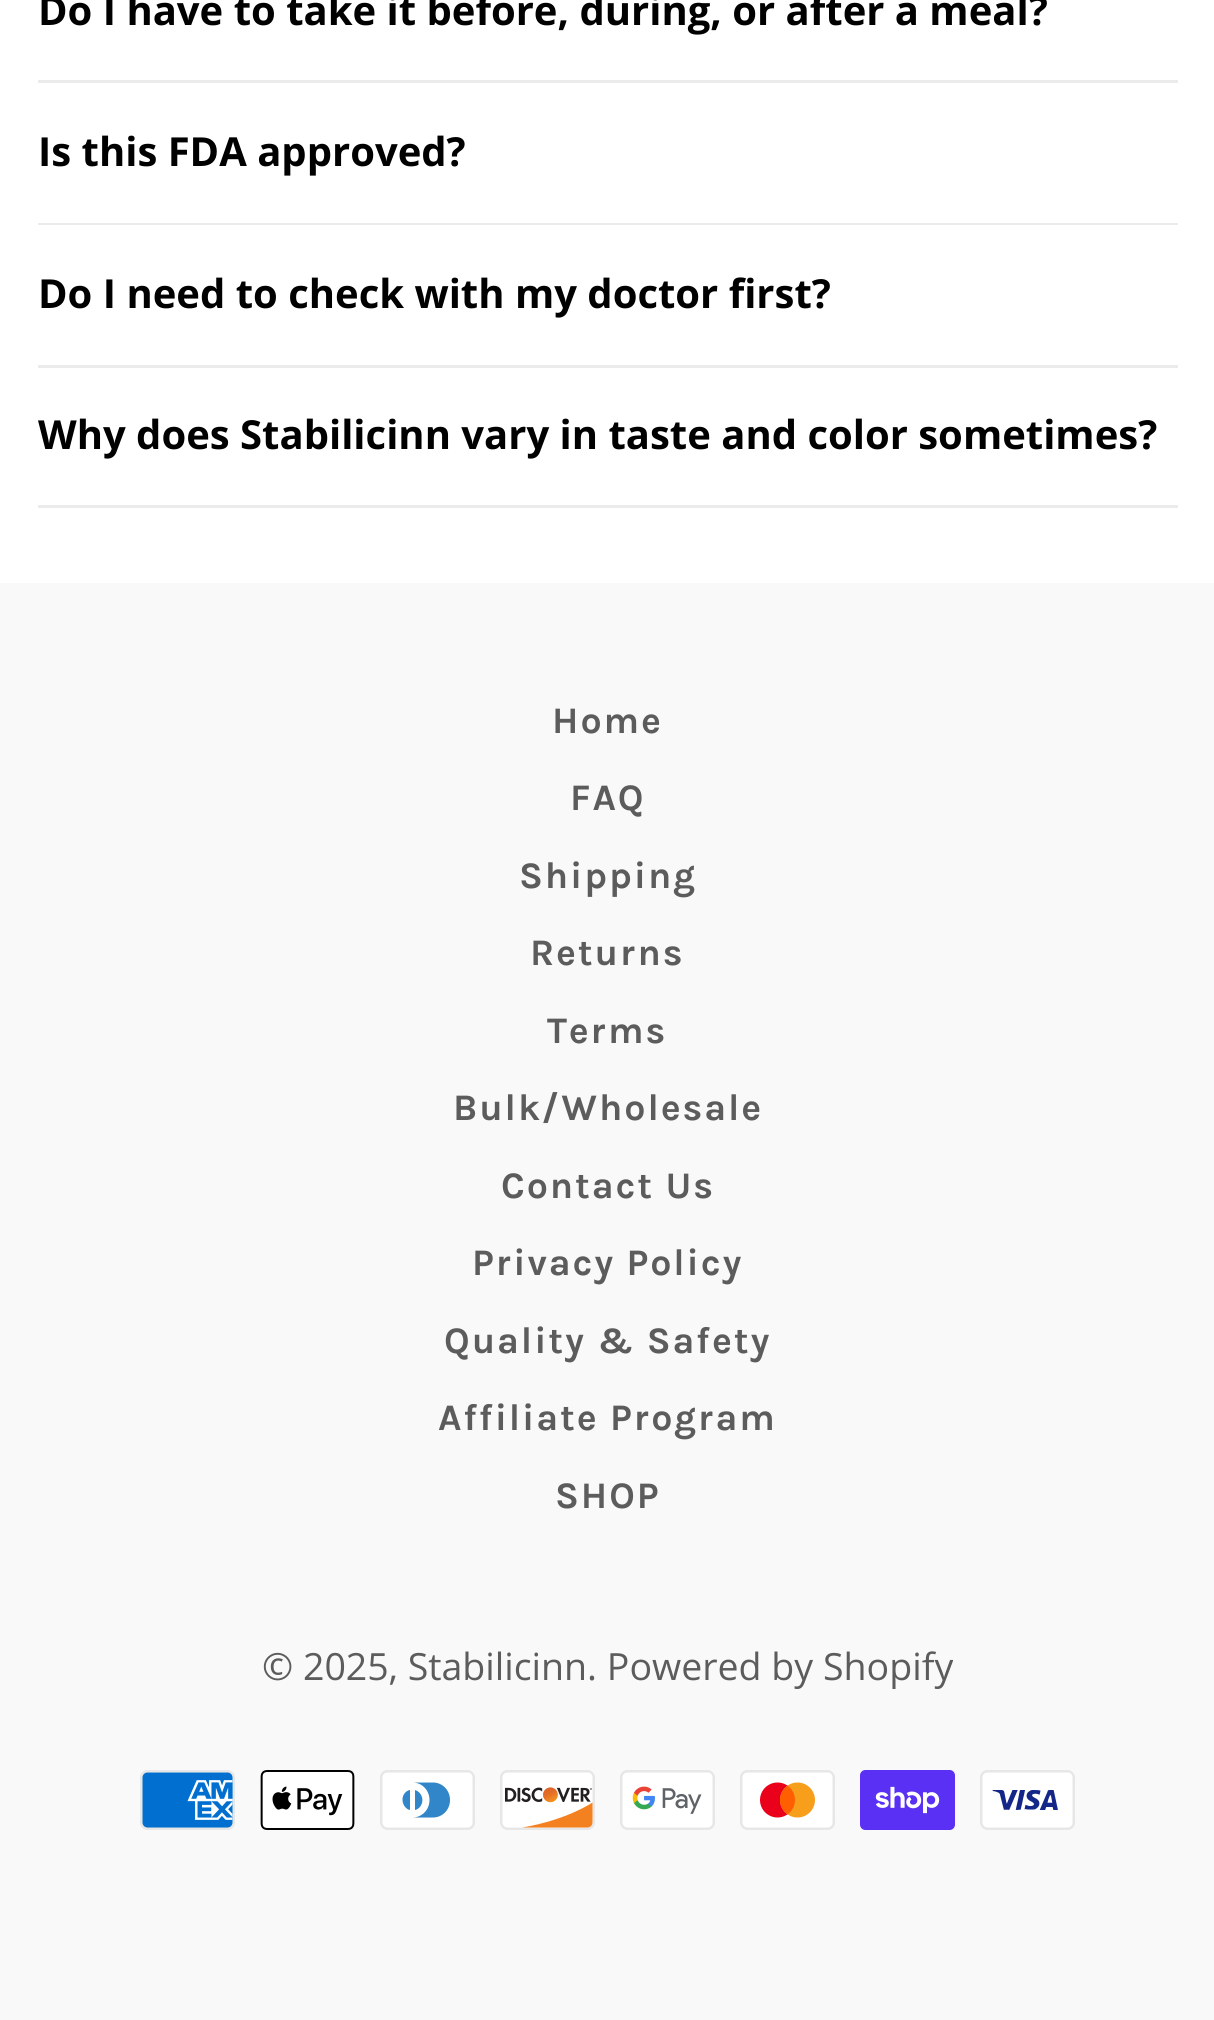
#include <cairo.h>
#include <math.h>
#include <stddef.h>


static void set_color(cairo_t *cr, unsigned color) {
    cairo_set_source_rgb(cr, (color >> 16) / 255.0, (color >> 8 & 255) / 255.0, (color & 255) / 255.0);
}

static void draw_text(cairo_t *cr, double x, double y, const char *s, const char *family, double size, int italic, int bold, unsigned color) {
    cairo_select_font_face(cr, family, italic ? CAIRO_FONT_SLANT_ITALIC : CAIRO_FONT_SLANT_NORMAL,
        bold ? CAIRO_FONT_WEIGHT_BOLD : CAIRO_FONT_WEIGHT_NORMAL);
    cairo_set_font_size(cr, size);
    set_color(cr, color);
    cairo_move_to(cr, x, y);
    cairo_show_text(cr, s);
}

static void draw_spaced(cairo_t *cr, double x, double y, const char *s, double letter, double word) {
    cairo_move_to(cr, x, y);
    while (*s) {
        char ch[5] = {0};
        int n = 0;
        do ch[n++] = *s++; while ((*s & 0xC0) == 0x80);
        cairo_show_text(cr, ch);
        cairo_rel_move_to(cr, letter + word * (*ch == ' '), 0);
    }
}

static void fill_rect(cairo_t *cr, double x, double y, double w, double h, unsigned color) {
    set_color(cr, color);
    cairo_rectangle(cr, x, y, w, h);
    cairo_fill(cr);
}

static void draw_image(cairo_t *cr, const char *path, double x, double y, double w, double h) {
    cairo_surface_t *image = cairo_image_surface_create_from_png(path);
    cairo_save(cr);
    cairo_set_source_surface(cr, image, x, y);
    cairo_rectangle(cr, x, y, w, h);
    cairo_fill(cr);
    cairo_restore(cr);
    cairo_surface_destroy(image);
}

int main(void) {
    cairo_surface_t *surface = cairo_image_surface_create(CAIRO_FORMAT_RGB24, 1214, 2020);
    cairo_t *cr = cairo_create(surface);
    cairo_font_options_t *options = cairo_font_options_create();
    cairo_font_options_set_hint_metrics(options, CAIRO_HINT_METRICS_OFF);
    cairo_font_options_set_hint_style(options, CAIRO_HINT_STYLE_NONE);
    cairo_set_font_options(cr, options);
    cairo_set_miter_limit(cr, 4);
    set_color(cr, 0xFFFFFF);
    cairo_paint(cr);
    fill_rect(cr, 38, 80, 1140, 3, 0xEBEBEB);
    draw_text(cr, 38, 25, "Do I have to take it before, during, or after a meal?", "Open Sans", 40, 0, 1, 0x000000);
    fill_rect(cr, 38, 223, 1140, 2, 0xEBEBEB);
    draw_text(cr, 38, 166, "Is this FDA approved?", "Open Sans", 40, 0, 1, 0x000000);
    fill_rect(cr, 38, 365, 1140, 3, 0xEBEBEB);
    draw_text(cr, 38, 308, "Do I need to check with my doctor first?", "Open Sans", 40, 0, 1, 0x000000);
    fill_rect(cr, 38, 505, 1140, 3, 0xEBEBEB);
    draw_text(cr, 38, 449, "Why does Stabilicinn vary in taste and color sometimes?", "Open Sans", 40, 0, 1, 0x000000);
    fill_rect(cr, 0, 583, 1214, 1437, 0xF9F9F9);
    cairo_select_font_face(cr, "Karla", CAIRO_FONT_SLANT_NORMAL, CAIRO_FONT_WEIGHT_BOLD);
    cairo_set_font_size(cr, 37.5);
    set_color(cr, 0x5C5C5C);
    draw_spaced(cr, 552, 733, "Home", 1.9, 0);
    draw_spaced(cr, 570, 810, "FAQ", 1.9, 0);
    draw_spaced(cr, 519, 888, "Shipping", 1.9, 0);
    draw_spaced(cr, 530, 965, "Returns", 1.9, 0);
    draw_spaced(cr, 547, 1043, "Terms", 1.9, 0);
    draw_spaced(cr, 453, 1120, "Bulk/Wholesale", 1.9, 0);
    draw_spaced(cr, 501, 1198, "Contact Us", 1.9, 0);
    draw_spaced(cr, 472, 1275, "Privacy Policy", 1.9, 0);
    draw_spaced(cr, 444, 1353, "Quality & Safety", 1.9, 0);
    draw_spaced(cr, 438, 1430, "Affiliate Program", 1.9, 0);
    draw_spaced(cr, 555, 1508, "SHOP", 1.9, 0);
    draw_text(cr, 262, 1680, "© 2025, Stabilicinn. Powered by Shopify", "Open Sans", 37.5, 0, 0, 0x5C5C5C);
    draw_image(cr, "assets/img1.png", 140, 1770, 95, 60);
    draw_image(cr, "assets/img2.png", 260, 1770, 95, 60);
    draw_image(cr, "assets/img3.png", 380, 1770, 95, 60);
    draw_image(cr, "assets/img4.png", 500, 1770, 95, 60);
    draw_image(cr, "assets/img5.png", 620, 1770, 95, 60);
    draw_image(cr, "assets/img6.png", 740, 1770, 95, 60);
    draw_image(cr, "assets/img7.png", 860, 1770, 95, 60);
    draw_image(cr, "assets/img8.png", 980, 1770, 95, 60);
    cairo_surface_write_to_png(surface, "output.png");
    cairo_font_options_destroy(options);
    cairo_destroy(cr);
    cairo_surface_destroy(surface);
    return 0;
}
